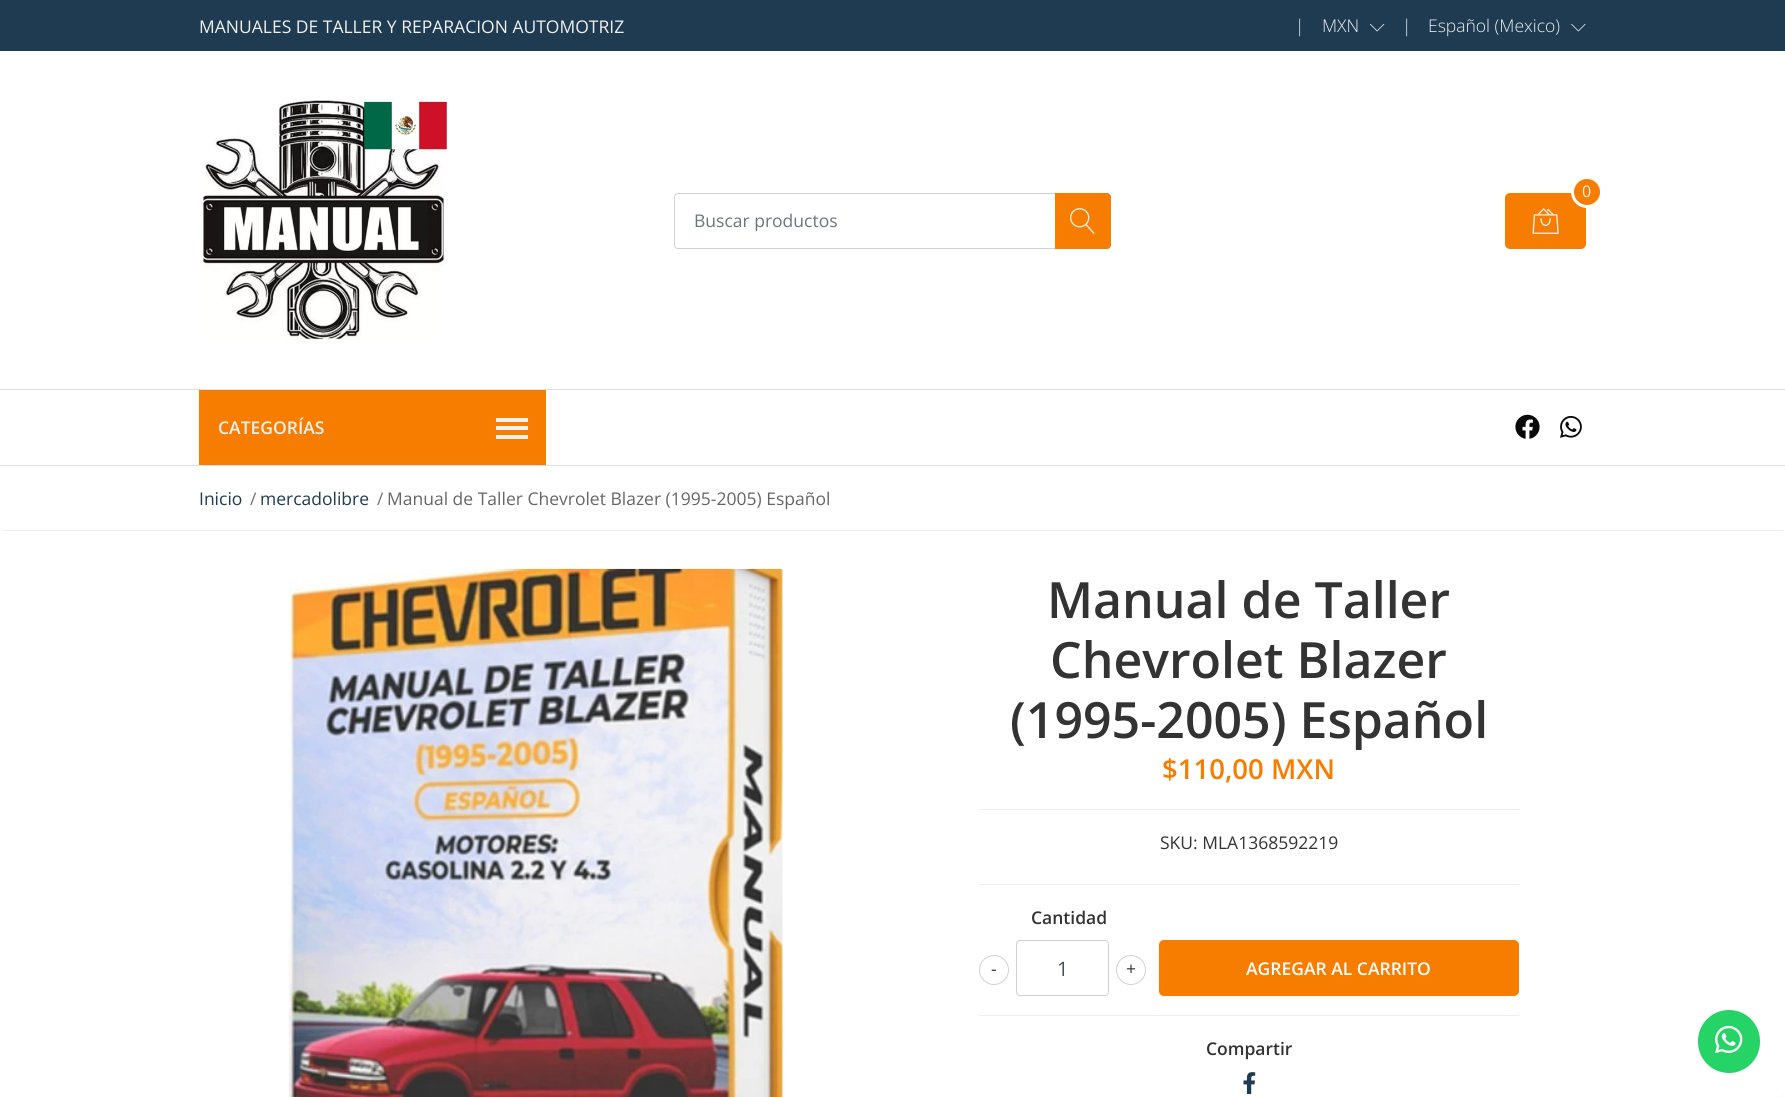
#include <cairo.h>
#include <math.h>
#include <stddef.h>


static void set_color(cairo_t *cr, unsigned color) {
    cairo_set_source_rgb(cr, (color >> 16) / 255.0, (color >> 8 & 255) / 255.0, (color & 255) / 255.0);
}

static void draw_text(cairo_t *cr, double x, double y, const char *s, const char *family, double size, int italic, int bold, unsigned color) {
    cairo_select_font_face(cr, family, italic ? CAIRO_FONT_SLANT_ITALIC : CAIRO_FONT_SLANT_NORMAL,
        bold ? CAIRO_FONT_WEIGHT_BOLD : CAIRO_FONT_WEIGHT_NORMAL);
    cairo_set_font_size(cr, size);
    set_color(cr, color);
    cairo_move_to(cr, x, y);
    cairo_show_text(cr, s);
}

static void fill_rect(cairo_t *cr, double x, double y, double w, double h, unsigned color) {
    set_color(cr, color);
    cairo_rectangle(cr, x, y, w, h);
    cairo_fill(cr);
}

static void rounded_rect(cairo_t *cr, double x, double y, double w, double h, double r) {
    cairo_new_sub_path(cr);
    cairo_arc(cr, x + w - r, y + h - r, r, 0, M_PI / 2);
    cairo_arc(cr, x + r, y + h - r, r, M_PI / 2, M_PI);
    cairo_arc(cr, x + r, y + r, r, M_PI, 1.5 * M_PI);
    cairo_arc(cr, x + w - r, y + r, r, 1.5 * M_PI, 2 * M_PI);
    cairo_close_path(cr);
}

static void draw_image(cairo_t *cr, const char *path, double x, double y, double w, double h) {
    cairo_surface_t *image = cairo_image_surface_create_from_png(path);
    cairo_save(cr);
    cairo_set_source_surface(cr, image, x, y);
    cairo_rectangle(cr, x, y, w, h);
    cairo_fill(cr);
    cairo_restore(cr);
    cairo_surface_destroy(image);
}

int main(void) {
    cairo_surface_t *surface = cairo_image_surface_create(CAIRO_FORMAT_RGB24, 1785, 1097);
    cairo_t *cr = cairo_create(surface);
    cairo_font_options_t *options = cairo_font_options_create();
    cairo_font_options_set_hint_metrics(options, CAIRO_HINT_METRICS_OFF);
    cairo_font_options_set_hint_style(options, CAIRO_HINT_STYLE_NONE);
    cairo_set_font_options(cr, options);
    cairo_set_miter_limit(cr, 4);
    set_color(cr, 0xFFFFFF);
    cairo_paint(cr);
    fill_rect(cr, 0, 0, 1785, 51, 0x1E3B51);
    draw_text(cr, 199, 33, "MANUALES DE TALLER Y REPARACION AUTOMOTRIZ", "Open Sans", 17.5, 0, 0, 0xF1F1F1);
    draw_text(cr, 1295, 32, "|", "Open Sans Light", 17.5, 0, 0, 0xF1F1F1);
    draw_text(cr, 1322, 32, "MXN", "Open Sans Light", 17.5, 0, 0, 0xF1F1F1);
    draw_image(cr, "assets/img1.png", 1370, 23, 15, 9);
    draw_text(cr, 1402, 32, "|", "Open Sans Light", 17.5, 0, 0, 0xF1F1F1);
    draw_text(cr, 1428, 32, "Español (Mexico)", "Open Sans Light", 17.5, 0, 0, 0xF1F1F1);
    draw_image(cr, "assets/img2.png", 1571, 23, 15, 9);
    draw_image(cr, "assets/img3.png", 203, 100, 245, 241);
    set_color(cr, 0xF77D00);
    rounded_rect(cr, 1505, 193, 81, 56, 5);
    cairo_fill(cr);
    cairo_arc(cr, 1587, 192, 14.5, 0, 2 * M_PI);
    cairo_fill_preserve(cr);
    set_color(cr, 0xFFFFFF);
    cairo_set_line_width(cr, 3);
    cairo_stroke(cr);
    draw_text(cr, 1582, 197, "0", "Open Sans", 16, 0, 0, 0xF1F1F1);
    draw_image(cr, "assets/img4.png", 1532, 208, 27, 26);
    rounded_rect(cr, 674.5, 193.5, 436, 55, 3.5);
    set_color(cr, 0xD1D1D1);
    cairo_set_line_width(cr, 1);
    cairo_stroke(cr);
    draw_text(cr, 694, 227, "Buscar productos", "Open Sans", 17.5, 0, 0, 0x6C757D);
    set_color(cr, 0xF77D00);
    cairo_new_path(cr);
    cairo_move_to(cr, 1055, 193);
    cairo_line_to(cr, 1107, 193);
    cairo_curve_to(cr, 1109, 193, 1111, 195, 1111, 197);
    cairo_line_to(cr, 1111, 245);
    cairo_curve_to(cr, 1111, 247, 1109, 249, 1107, 249);
    cairo_line_to(cr, 1055, 249);
    cairo_close_path(cr);
    cairo_fill(cr);
    draw_image(cr, "assets/img5.png", 1070, 208, 25, 26);
    fill_rect(cr, 0, 389, 1785, 1, 0xDFDFDF);
    fill_rect(cr, 0, 465, 1785, 1, 0xDFDFDF);
    fill_rect(cr, 199, 390, 347, 75, 0xF77D00);
    draw_text(cr, 218, 434, "CATEGORÍAS", "Open Sans SemiBold", 17.5, 0, 0, 0xF1F1F1);
    fill_rect(cr, 496, 418, 32, 4, 0xF1F1F1);
    fill_rect(cr, 496, 426, 32, 4, 0xF1F1F1);
    fill_rect(cr, 496, 435, 32, 4, 0xF1F1F1);
    draw_image(cr, "assets/img6.png", 1515, 414, 25, 25);
    draw_image(cr, "assets/img7.png", 1560, 415, 22, 23);
    fill_rect(cr, 3, 530, 1780, 1, 0xEEEEEE);
    draw_text(cr, 199, 505, "Inicio", "Open Sans", 17.5, 0, 0, 0x1E3B51);
    draw_text(cr, 250, 505, "/", "Open Sans", 17.5, 0, 0, 0x6C757D);
    draw_text(cr, 260, 505, "mercadolibre", "Open Sans", 17.5, 0, 0, 0x1E3B51);
    draw_text(cr, 377, 505, "/", "Open Sans", 17.5, 0, 0, 0x6C757D);
    draw_text(cr, 387, 505, "Manual de Taller Chevrolet Blazer (1995-2005) Español", "Open Sans", 17.5, 0, 0, 0x666666);
    draw_image(cr, "assets/img8.png", 288, 568, 495, 529);
    fill_rect(cr, 979, 809, 540, 1, 0xEEEEEE);
    draw_text(cr, 1047, 618, "Manual de Taller", "Open Sans SemiBold", 50, 0, 0, 0x333333);
    draw_text(cr, 1050, 678, "Chevrolet Blazer", "Open Sans SemiBold", 50, 0, 0, 0x333333);
    draw_text(cr, 1010, 738, "(1995-2005) Español", "Open Sans SemiBold", 50, 0, 0, 0x333333);
    draw_text(cr, 1162, 779, "$110,00 MXN", "Open Sans SemiBold", 27.5, 0, 0, 0xF77D00);
    fill_rect(cr, 979, 884, 540, 1, 0xEEEEEE);
    draw_text(cr, 1160, 849, "SKU: MLA1368592219", "Open Sans", 17.5, 0, 0, 0x333333);
    fill_rect(cr, 979, 1015, 540, 1, 0xEEEEEE);
    draw_text(cr, 1031, 924, "Cantidad", "Open Sans SemiBold", 17.5, 0, 0, 0x333333);
    rounded_rect(cr, 1016.5, 940.5, 92, 55, 3.5);
    set_color(cr, 0xD1D1D1);
    cairo_stroke(cr);
    draw_text(cr, 1057, 976, "1", "Open Sans", 20, 0, 0, 0x495057);
    cairo_new_path(cr);
    cairo_arc(cr, 994, 970, 14.5, 0, 2 * M_PI);
    set_color(cr, 0xD1D1D1);
    cairo_stroke(cr);
    draw_text(cr, 991, 975, "-", "Open Sans", 17.5, 0, 0, 0x333333);
    cairo_new_path(cr);
    cairo_arc(cr, 1131, 970, 14.5, 0, 2 * M_PI);
    set_color(cr, 0xD1D1D1);
    cairo_stroke(cr);
    draw_text(cr, 1126, 975, "+", "Open Sans", 17.5, 0, 0, 0x333333);
    set_color(cr, 0xF77D00);
    rounded_rect(cr, 1159, 940, 360, 56, 5);
    cairo_fill(cr);
    draw_text(cr, 1246, 975, "AGREGAR AL CARRITO", "Open Sans SemiBold", 17.5, 0, 0, 0xFFFFFF);
    draw_text(cr, 1206, 1055, "Compartir", "Open Sans SemiBold", 17.5, 0, 0, 0x333333);
    draw_image(cr, "assets/img9.png", 1243, 1072, 13, 22);
    set_color(cr, 0x25D366);
    rounded_rect(cr, 1698, 1010, 62, 63, 31);
    cairo_fill(cr);
    draw_image(cr, "assets/img10.png", 1715, 1025, 28, 29);
    fill_rect(cr, 1783, 1095, 2, 2, 0xF5F5F5);
    cairo_surface_write_to_png(surface, "output.png");
    cairo_font_options_destroy(options);
    cairo_destroy(cr);
    cairo_surface_destroy(surface);
    return 0;
}
